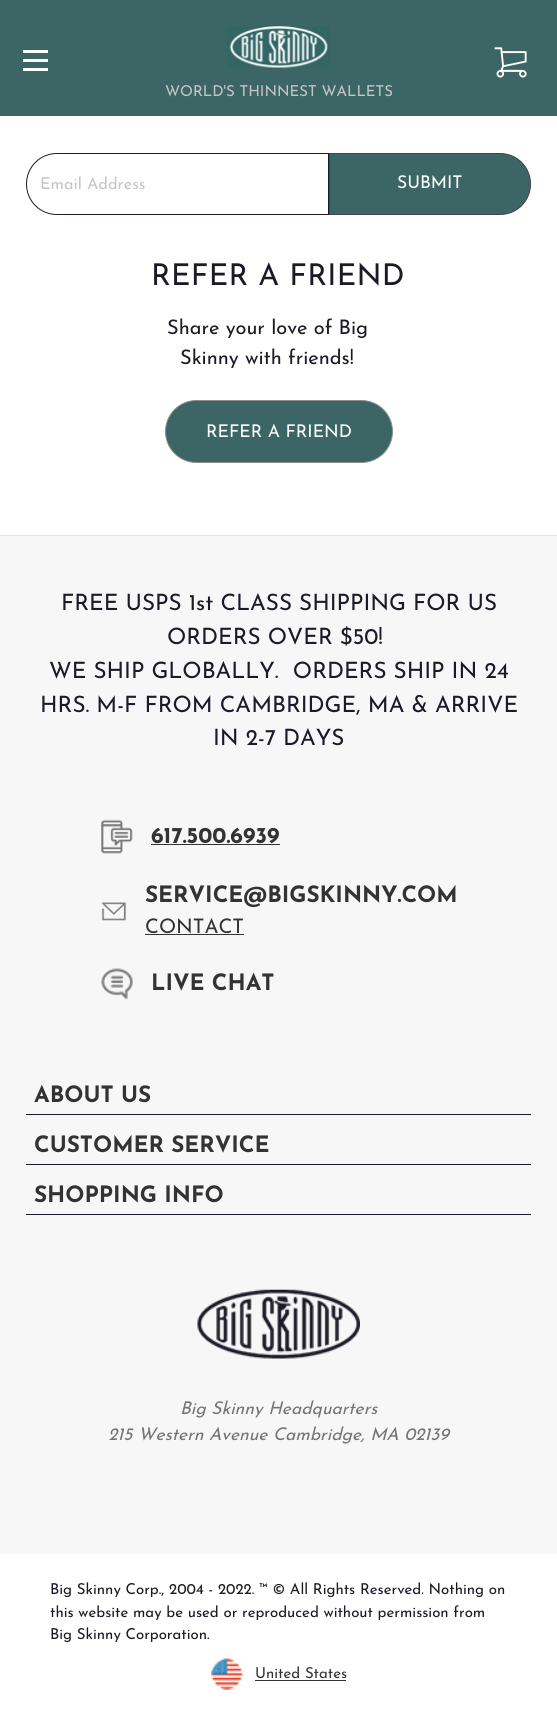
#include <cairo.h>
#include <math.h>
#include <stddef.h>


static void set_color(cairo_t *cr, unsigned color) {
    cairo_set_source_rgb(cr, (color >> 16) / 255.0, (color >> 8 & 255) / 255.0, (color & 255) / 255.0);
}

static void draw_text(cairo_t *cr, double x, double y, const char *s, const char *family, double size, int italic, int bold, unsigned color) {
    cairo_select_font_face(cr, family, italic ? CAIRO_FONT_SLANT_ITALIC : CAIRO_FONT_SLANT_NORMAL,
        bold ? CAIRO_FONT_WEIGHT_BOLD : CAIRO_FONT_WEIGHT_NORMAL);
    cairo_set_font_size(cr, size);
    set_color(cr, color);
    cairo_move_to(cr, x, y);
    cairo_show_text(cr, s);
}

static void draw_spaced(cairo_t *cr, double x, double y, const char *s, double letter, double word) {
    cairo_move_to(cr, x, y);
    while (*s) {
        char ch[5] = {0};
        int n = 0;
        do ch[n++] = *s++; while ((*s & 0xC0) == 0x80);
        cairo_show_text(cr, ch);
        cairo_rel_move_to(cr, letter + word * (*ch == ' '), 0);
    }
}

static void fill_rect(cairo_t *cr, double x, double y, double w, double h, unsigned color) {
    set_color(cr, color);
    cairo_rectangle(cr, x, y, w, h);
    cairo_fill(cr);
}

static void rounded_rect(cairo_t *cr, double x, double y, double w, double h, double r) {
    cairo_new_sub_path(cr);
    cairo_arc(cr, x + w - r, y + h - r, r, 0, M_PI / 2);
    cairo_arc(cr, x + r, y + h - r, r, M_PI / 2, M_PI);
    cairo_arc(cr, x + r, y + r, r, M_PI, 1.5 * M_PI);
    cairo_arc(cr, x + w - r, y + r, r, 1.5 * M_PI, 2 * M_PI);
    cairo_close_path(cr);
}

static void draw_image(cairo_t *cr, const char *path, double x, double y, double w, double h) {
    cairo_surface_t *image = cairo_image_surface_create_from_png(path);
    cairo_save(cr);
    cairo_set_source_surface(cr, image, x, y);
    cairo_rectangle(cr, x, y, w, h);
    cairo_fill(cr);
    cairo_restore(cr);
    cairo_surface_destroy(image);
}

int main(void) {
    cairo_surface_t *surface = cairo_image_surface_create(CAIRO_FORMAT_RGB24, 557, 1714);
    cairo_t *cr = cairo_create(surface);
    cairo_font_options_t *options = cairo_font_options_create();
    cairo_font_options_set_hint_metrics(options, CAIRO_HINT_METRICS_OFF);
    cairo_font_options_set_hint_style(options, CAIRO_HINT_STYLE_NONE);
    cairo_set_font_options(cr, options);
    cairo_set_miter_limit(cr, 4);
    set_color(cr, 0xFFFFFF);
    cairo_paint(cr);
    fill_rect(cr, 0, 0, 557, 116, 0x3C6666);
    fill_rect(cr, 23, 59, 25, 3, 0xFFFFFF);
    fill_rect(cr, 23, 50, 25, 3, 0xFFFFFF);
    fill_rect(cr, 23, 68, 25, 3, 0xFFFFFF);
    draw_image(cr, "assets/img1.png", 227, 26, 103, 42);
    draw_image(cr, "assets/img2.png", 494, 47, 33, 31);
    draw_text(cr, 165, 96, "WORLD'S THINNEST WALLETS", "Josefin Sans Thin", 15, 0, 0, 0xC5C5C5);
    cairo_new_path(cr);
    cairo_move_to(cr, 57, 153.5);
    cairo_line_to(cr, 328.5, 153.5);
    cairo_line_to(cr, 328.5, 214.5);
    cairo_line_to(cr, 57, 214.5);
    cairo_curve_to(cr, 40, 214.5, 26.5, 201, 26.5, 184);
    cairo_curve_to(cr, 26.5, 167, 40, 153.5, 57, 153.5);
    cairo_close_path(cr);
    set_color(cr, 0x1B1A26);
    cairo_set_line_width(cr, 1);
    cairo_stroke(cr);
    draw_text(cr, 40, 189, "Email Address", "Josefin Sans Thin", 16.25, 0, 0, 0xC5C5C5);
    set_color(cr, 0x3C6666);
    cairo_new_path(cr);
    cairo_move_to(cr, 329.5, 153.5);
    cairo_line_to(cr, 500, 153.5);
    cairo_curve_to(cr, 517, 153.5, 530.5, 167, 530.5, 184);
    cairo_curve_to(cr, 530.5, 201, 517, 214.5, 500, 214.5);
    cairo_line_to(cr, 329.5, 214.5);
    cairo_close_path(cr);
    cairo_fill_preserve(cr);
    set_color(cr, 0x444444);
    cairo_stroke(cr);
    draw_text(cr, 397, 188, "SUBMIT", "Josefin Sans Thin", 17.5, 0, 0, 0xFFFFFF);
    cairo_set_font_size(cr, 30);
    set_color(cr, 0x1B1A26);
    draw_spaced(cr, 151, 285, "REFER A FRIEND", 0.25, 0);
    draw_text(cr, 167, 334, "Share your love of Big", "Josefin Sans Thin", 20, 0, 0, 0x1B1A26);
    draw_text(cr, 180, 364, "Skinny with friends!", "Josefin Sans Thin", 20, 0, 0, 0x1B1A26);
    set_color(cr, 0x3C6666);
    rounded_rect(cr, 165.5, 400.5, 227, 62, 31);
    cairo_fill_preserve(cr);
    set_color(cr, 0x8F8F8F);
    cairo_stroke(cr);
    draw_text(cr, 206, 437, "REFER A FRIEND", "Josefin Sans Thin", 17.5, 0, 0, 0xFFFFFF);
    fill_rect(cr, 0, 536, 557, 1018, 0xF7F7F7);
    fill_rect(cr, 0, 535, 557, 1, 0xE5E5E5);
    draw_text(cr, 61, 610, "FREE USPS 1st CLASS SHIPPING FOR US", "Josefin Sans Thin", 22.5, 0, 0, 0x1B1A26);
    draw_text(cr, 167, 644, "ORDERS OVER $50!", "Josefin Sans Thin", 22.5, 0, 0, 0x1B1A26);
    draw_text(cr, 49, 678, "WE SHIP GLOBALLY.  ORDERS SHIP IN 24", "Josefin Sans Thin", 22.5, 0, 0, 0x1B1A26);
    draw_text(cr, 40, 712, "HRS. M-F FROM CAMBRIDGE, MA & ARRIVE", "Josefin Sans Thin", 22.5, 0, 0, 0x1B1A26);
    draw_text(cr, 213, 745, "IN 2-7 DAYS", "Josefin Sans Thin", 22.5, 0, 0, 0x1B1A26);
    draw_image(cr, "assets/img3.png", 101, 819, 32, 35);
    draw_text(cr, 151, 843, "617.500.6939", "Josefin Sans", 22.5, 0, 1, 0x333333);
    fill_rect(cr, 151, 844, 129, 1, 0x333333);
    draw_image(cr, "assets/img4.png", 101, 902, 26, 19);
    draw_text(cr, 145, 902, "SERVICE@BIGSKINNY.COM", "Josefin Sans", 22.5, 0, 1, 0x333333);
    draw_text(cr, 145, 933, "CONTACT", "Josefin Sans Thin", 20, 0, 0, 0x333333);
    fill_rect(cr, 145, 934, 99, 1, 0x333333);
    draw_image(cr, "assets/img5.png", 101, 968, 32, 32);
    draw_text(cr, 151, 990, "LIVE CHAT", "Josefin Sans", 22.5, 0, 1, 0x333333);
    fill_rect(cr, 26, 1114, 505, 1, 0x1B1A26);
    draw_text(cr, 34, 1102, "ABOUT US", "Josefin Sans", 22.5, 0, 1, 0x333333);
    fill_rect(cr, 26, 1164, 505, 1, 0x1B1A26);
    draw_text(cr, 34, 1152, "CUSTOMER SERVICE", "Josefin Sans", 22.5, 0, 1, 0x333333);
    fill_rect(cr, 26, 1214, 505, 1, 0x1B1A26);
    draw_text(cr, 34, 1202, "SHOPPING INFO", "Josefin Sans", 22.5, 0, 1, 0x333333);
    draw_image(cr, "assets/img6.png", 197, 1289, 163, 70);
    draw_text(cr, 180, 1414, "Big Skinny Headquarters", "Josefin Sans Thin", 17.5, 1, 0, 0x757575);
    draw_text(cr, 108, 1440, "215 Western Avenue Cambridge, MA 02139", "Josefin Sans Thin", 17.5, 1, 0, 0x757575);
    draw_text(cr, 50, 1594, "Big Skinny Corp., 2004 - 2022. ™ © All Rights Reserved. Nothing on", "Josefin Sans Thin", 15, 0, 0, 0x1B1A26);
    draw_text(cr, 50, 1617, "this website may be used or reproduced without permission from", "Josefin Sans Thin", 15, 0, 0, 0x1B1A26);
    draw_text(cr, 50, 1639, "Big Skinny Corporation.", "Josefin Sans Thin", 15, 0, 0, 0x1B1A26);
    draw_image(cr, "assets/img7.png", 211, 1658, 32, 32);
    draw_text(cr, 255, 1678, "United States", "Josefin Sans Thin", 15, 0, 0, 0x333333);
    fill_rect(cr, 255, 1680, 91, 1, 0x333333);
    cairo_surface_write_to_png(surface, "output.png");
    cairo_font_options_destroy(options);
    cairo_destroy(cr);
    cairo_surface_destroy(surface);
    return 0;
}
